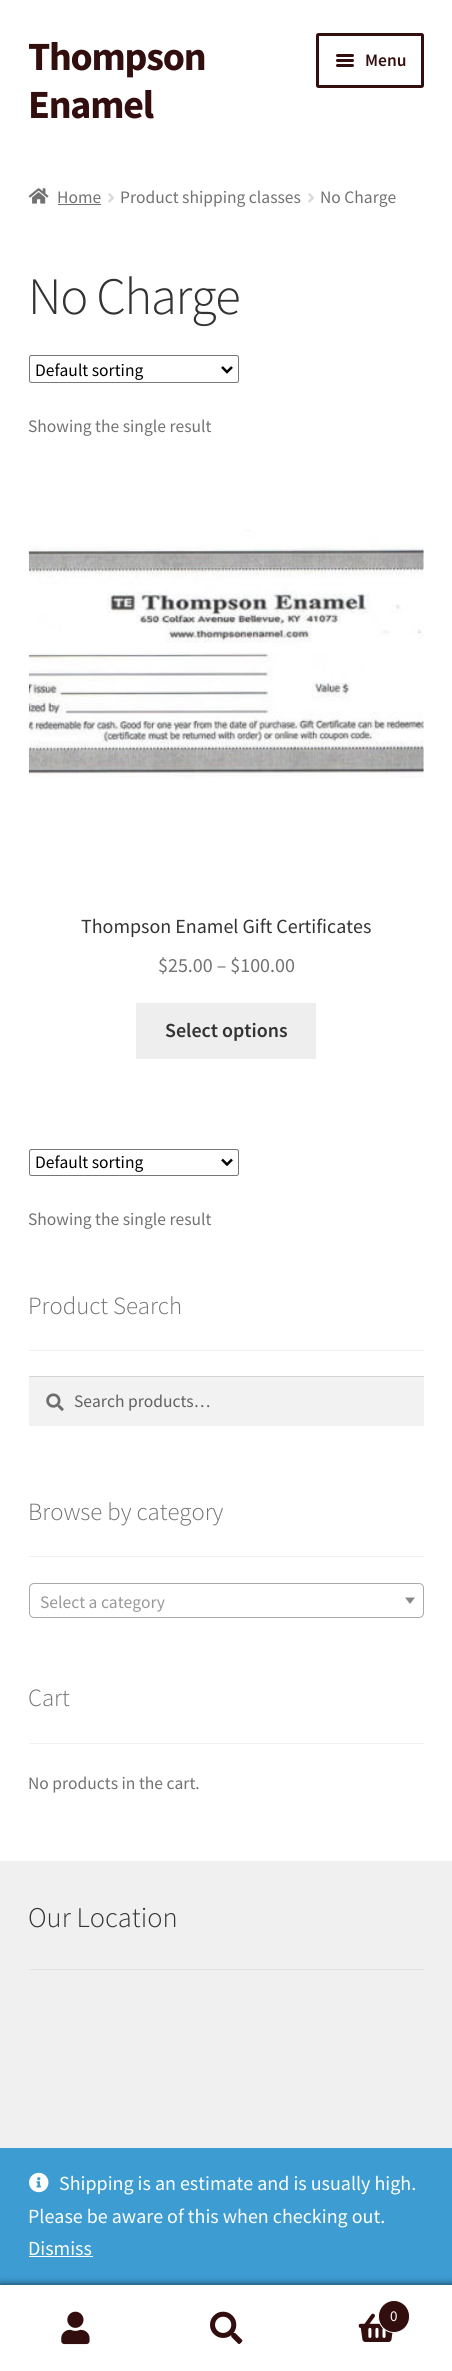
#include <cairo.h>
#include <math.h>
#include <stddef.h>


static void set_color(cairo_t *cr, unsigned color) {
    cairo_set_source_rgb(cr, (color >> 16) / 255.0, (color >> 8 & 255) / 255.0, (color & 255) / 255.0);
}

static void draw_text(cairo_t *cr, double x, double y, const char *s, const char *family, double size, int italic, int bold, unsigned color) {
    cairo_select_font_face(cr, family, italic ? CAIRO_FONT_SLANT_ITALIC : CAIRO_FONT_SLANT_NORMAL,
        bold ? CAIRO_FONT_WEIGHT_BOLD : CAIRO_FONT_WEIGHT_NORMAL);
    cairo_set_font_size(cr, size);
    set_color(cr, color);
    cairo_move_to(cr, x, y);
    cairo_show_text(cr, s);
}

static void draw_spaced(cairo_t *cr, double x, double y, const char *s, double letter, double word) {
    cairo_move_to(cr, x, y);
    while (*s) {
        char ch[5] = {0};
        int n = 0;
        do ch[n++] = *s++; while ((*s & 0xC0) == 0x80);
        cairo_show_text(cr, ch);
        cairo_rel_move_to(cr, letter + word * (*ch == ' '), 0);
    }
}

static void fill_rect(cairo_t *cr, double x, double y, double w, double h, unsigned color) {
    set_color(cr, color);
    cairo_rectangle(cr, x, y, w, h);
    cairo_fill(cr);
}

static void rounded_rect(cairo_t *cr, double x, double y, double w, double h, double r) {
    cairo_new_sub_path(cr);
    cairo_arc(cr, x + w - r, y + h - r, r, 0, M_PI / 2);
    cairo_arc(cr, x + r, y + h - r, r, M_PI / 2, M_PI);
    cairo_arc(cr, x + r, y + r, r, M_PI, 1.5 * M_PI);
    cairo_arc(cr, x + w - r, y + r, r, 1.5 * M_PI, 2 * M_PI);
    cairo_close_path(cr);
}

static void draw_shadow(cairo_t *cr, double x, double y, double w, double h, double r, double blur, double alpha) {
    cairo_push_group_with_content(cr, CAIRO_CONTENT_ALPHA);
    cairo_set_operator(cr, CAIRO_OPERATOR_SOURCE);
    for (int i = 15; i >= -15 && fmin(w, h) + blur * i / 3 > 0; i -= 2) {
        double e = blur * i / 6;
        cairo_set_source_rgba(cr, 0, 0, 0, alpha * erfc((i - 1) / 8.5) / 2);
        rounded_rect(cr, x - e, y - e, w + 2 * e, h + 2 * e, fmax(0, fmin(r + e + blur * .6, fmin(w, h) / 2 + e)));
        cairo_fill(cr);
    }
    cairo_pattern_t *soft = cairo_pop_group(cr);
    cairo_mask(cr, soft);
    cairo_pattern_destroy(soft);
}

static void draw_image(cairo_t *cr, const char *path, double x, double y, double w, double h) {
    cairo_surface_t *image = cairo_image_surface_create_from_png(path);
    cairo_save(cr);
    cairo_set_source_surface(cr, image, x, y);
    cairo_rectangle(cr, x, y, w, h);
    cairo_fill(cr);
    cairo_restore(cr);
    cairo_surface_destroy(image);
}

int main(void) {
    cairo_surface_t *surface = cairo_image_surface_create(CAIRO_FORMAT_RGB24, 452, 2371);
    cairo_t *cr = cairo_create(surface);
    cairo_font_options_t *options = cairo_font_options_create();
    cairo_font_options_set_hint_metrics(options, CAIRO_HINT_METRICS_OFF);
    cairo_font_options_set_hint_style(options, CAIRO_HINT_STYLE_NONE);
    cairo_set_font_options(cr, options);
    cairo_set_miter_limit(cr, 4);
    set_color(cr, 0xFFFFFF);
    cairo_paint(cr);
    cairo_select_font_face(cr, "Source Sans Pro", CAIRO_FONT_SLANT_NORMAL, CAIRO_FONT_WEIGHT_BOLD);
    cairo_set_font_size(cr, 40);
    set_color(cr, 0x330E0E);
    draw_spaced(cr, 28, 70, "Thompson", -1.25, 0);
    draw_spaced(cr, 28, 118, "Enamel", -1.25, 0);
    rounded_rect(cr, 317.5, 34.5, 105, 52, 1);
    cairo_set_line_width(cr, 3);
    cairo_stroke(cr);
    rounded_rect(cr, 336, 54, 18, 3, 1.5);
    cairo_fill(cr);
    rounded_rect(cr, 336, 59, 18, 3, 1.5);
    cairo_fill(cr);
    draw_text(cr, 365, 66, "Menu", "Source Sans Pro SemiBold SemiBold", 17.5, 0, 0, 0x330E0E);
    rounded_rect(cr, 336, 64, 18, 3, 1.5);
    cairo_fill(cr);
    draw_image(cr, "assets/img1.png", 28, 188, 21, 16);
    draw_text(cr, 57, 203, "Home", "Source Sans Pro", 17.5, 0, 0, 0x727272);
    fill_rect(cr, 58, 204, 43, 1, 0x727272);
    draw_image(cr, "assets/img2.png", 108, 193, 7, 10);
    draw_text(cr, 120, 203, "Product shipping classes", "Source Sans Pro", 17.5, 0, 0, 0x727272);
    draw_image(cr, "assets/img2.png", 308, 193, 7, 10);
    draw_text(cr, 320, 203, "No Charge", "Source Sans Pro", 17.5, 0, 0, 0x727272);
    cairo_select_font_face(cr, "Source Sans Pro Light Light", CAIRO_FONT_SLANT_NORMAL, CAIRO_FONT_WEIGHT_NORMAL);
    cairo_set_font_size(cr, 52.5);
    set_color(cr, 0x333333);
    draw_spaced(cr, 28, 314, "No Charge", -1.25, 0);
    rounded_rect(cr, 29.5, 355.5, 209, 27, 2);
    set_color(cr, 0x767676);
    cairo_set_line_width(cr, 1);
    cairo_stroke(cr);
    cairo_new_path(cr);
    cairo_move_to(cr, 222, 367);
    cairo_line_to(cr, 227, 372);
    cairo_line_to(cr, 232, 367);
    set_color(cr, 0x000000);
    cairo_set_line_width(cr, 2.5);
    cairo_stroke(cr);
    draw_text(cr, 35, 376, "Default sorting", "Source Sans Pro", 17.5, 0, 0, 0x000000);
    draw_text(cr, 28, 432, "Showing the single result", "Source Sans Pro", 17.5, 0, 0, 0x727272);
    draw_image(cr, "assets/img3.png", 28, 529, 396, 249);
    draw_text(cr, 81, 933, "Thompson Enamel Gift Certificates", "Source Sans Pro", 20, 0, 0, 0x333333);
    draw_text(cr, 158, 972, "$25.00 – $100.00", "Source Sans Pro", 20, 0, 0, 0x727272);
    fill_rect(cr, 136, 1003, 180, 56, 0xEEEEEE);
    draw_text(cr, 165, 1037, "Select options", "Source Sans Pro SemiBold SemiBold", 20, 0, 0, 0x333333);
    rounded_rect(cr, 29.5, 1149.5, 209, 26, 2);
    set_color(cr, 0x767676);
    cairo_set_line_width(cr, 1);
    cairo_stroke(cr);
    cairo_new_path(cr);
    cairo_move_to(cr, 222, 1159.5);
    cairo_line_to(cr, 227, 1164.5);
    cairo_line_to(cr, 232, 1159.5);
    set_color(cr, 0x000000);
    cairo_set_line_width(cr, 2.5);
    cairo_stroke(cr);
    draw_text(cr, 35, 1168, "Default sorting", "Source Sans Pro", 17.5, 0, 0, 0x000000);
    draw_text(cr, 28, 1225, "Showing the single result", "Source Sans Pro", 17.5, 0, 0, 0x727272);
    fill_rect(cr, 29, 1350, 395, 1, 0xF2F2F2);
    draw_text(cr, 28, 1314, "Product Search", "Source Sans Pro Light Light", 24.75, 0, 0, 0x727272);
    fill_rect(cr, 29, 1377, 395, 49, 0xF2F2F2);
    draw_image(cr, "assets/img4.png", 46, 1393, 18, 18);
    fill_rect(cr, 29, 1376, 395, 1, 0xD4D4D4);
    draw_text(cr, 74, 1407, "Search products…", "Source Sans Pro", 17.5, 0, 0, 0x616161);
    fill_rect(cr, 29, 1556, 395, 1, 0xF2F2F2);
    draw_text(cr, 28, 1520, "Browse by category", "Source Sans Pro Light Light", 24.75, 0, 0, 0x727272);
    rounded_rect(cr, 29.5, 1583.5, 394, 34, 4.5);
    set_color(cr, 0xAAAAAA);
    cairo_set_line_width(cr, 1);
    cairo_stroke(cr);
    draw_text(cr, 40, 1608, "Select a category", "Source Sans Pro", 17.5, 0, 0, 0x999999);
    set_color(cr, 0x888888);
    cairo_new_path(cr);
    cairo_move_to(cr, 405, 1597.5);
    cairo_line_to(cr, 415, 1597.5);
    cairo_line_to(cr, 410, 1604);
    cairo_close_path(cr);
    cairo_fill(cr);
    fill_rect(cr, 29, 1743, 395, 1, 0xF2F2F2);
    draw_text(cr, 28, 1706, "Cart", "Source Sans Pro Light Light", 24.75, 0, 0, 0x727272);
    draw_text(cr, 28, 1789, "No products in the cart.", "Source Sans Pro", 17.5, 0, 0, 0x727272);
    fill_rect(cr, 0, 1861, 452, 287, 0xF0F0F0);
    fill_rect(cr, 29, 1969, 395, 1, 0xE4E4E4);
    draw_text(cr, 28, 1927, "Our Location", "Source Sans Pro Light Light", 28.5, 0, 0, 0x333333);
    fill_rect(cr, 0, 2148, 452, 137, 0x3D9CD2);
    set_color(cr, 0x000000);
    draw_shadow(cr, 0, 2285, 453, 86, 0, 4, 0.7);
    fill_rect(cr, 0, 2285, 452, 1, 0xFFFFFF);
    fill_rect(cr, 0, 2286, 452, 85, 0xFFFFFF);
    draw_image(cr, "assets/img5.png", 61, 2311, 29, 34);
    draw_image(cr, "assets/img6.png", 210, 2311, 33, 33);
    draw_image(cr, "assets/img7.png", 358, 2313, 35, 29);
    set_color(cr, 0x330E0E);
    rounded_rect(cr, 378.5, 2300.5, 31, 32, 15.5);
    cairo_fill_preserve(cr);
    set_color(cr, 0xFFFFFF);
    cairo_stroke(cr);
    draw_text(cr, 390, 2321, "0", "Source Sans Pro", 15, 0, 0, 0xFFFFFF);
    draw_image(cr, "assets/img8.png", 29, 2172, 20, 21);
    draw_text(cr, 59, 2190, "Shipping is an estimate and is usually high.", "Source Sans Pro", 20, 0, 0, 0xFFFFFF);
    draw_text(cr, 28, 2223, "Please be aware of this when checking out.", "Source Sans Pro", 20, 0, 0, 0xFFFFFF);
    draw_text(cr, 28, 2255, "Dismiss", "Source Sans Pro", 20, 0, 0, 0xFFFFFF);
    fill_rect(cr, 29, 2256, 64, 1, 0xFFFFFF);
    cairo_surface_write_to_png(surface, "output.png");
    cairo_font_options_destroy(options);
    cairo_destroy(cr);
    cairo_surface_destroy(surface);
    return 0;
}
